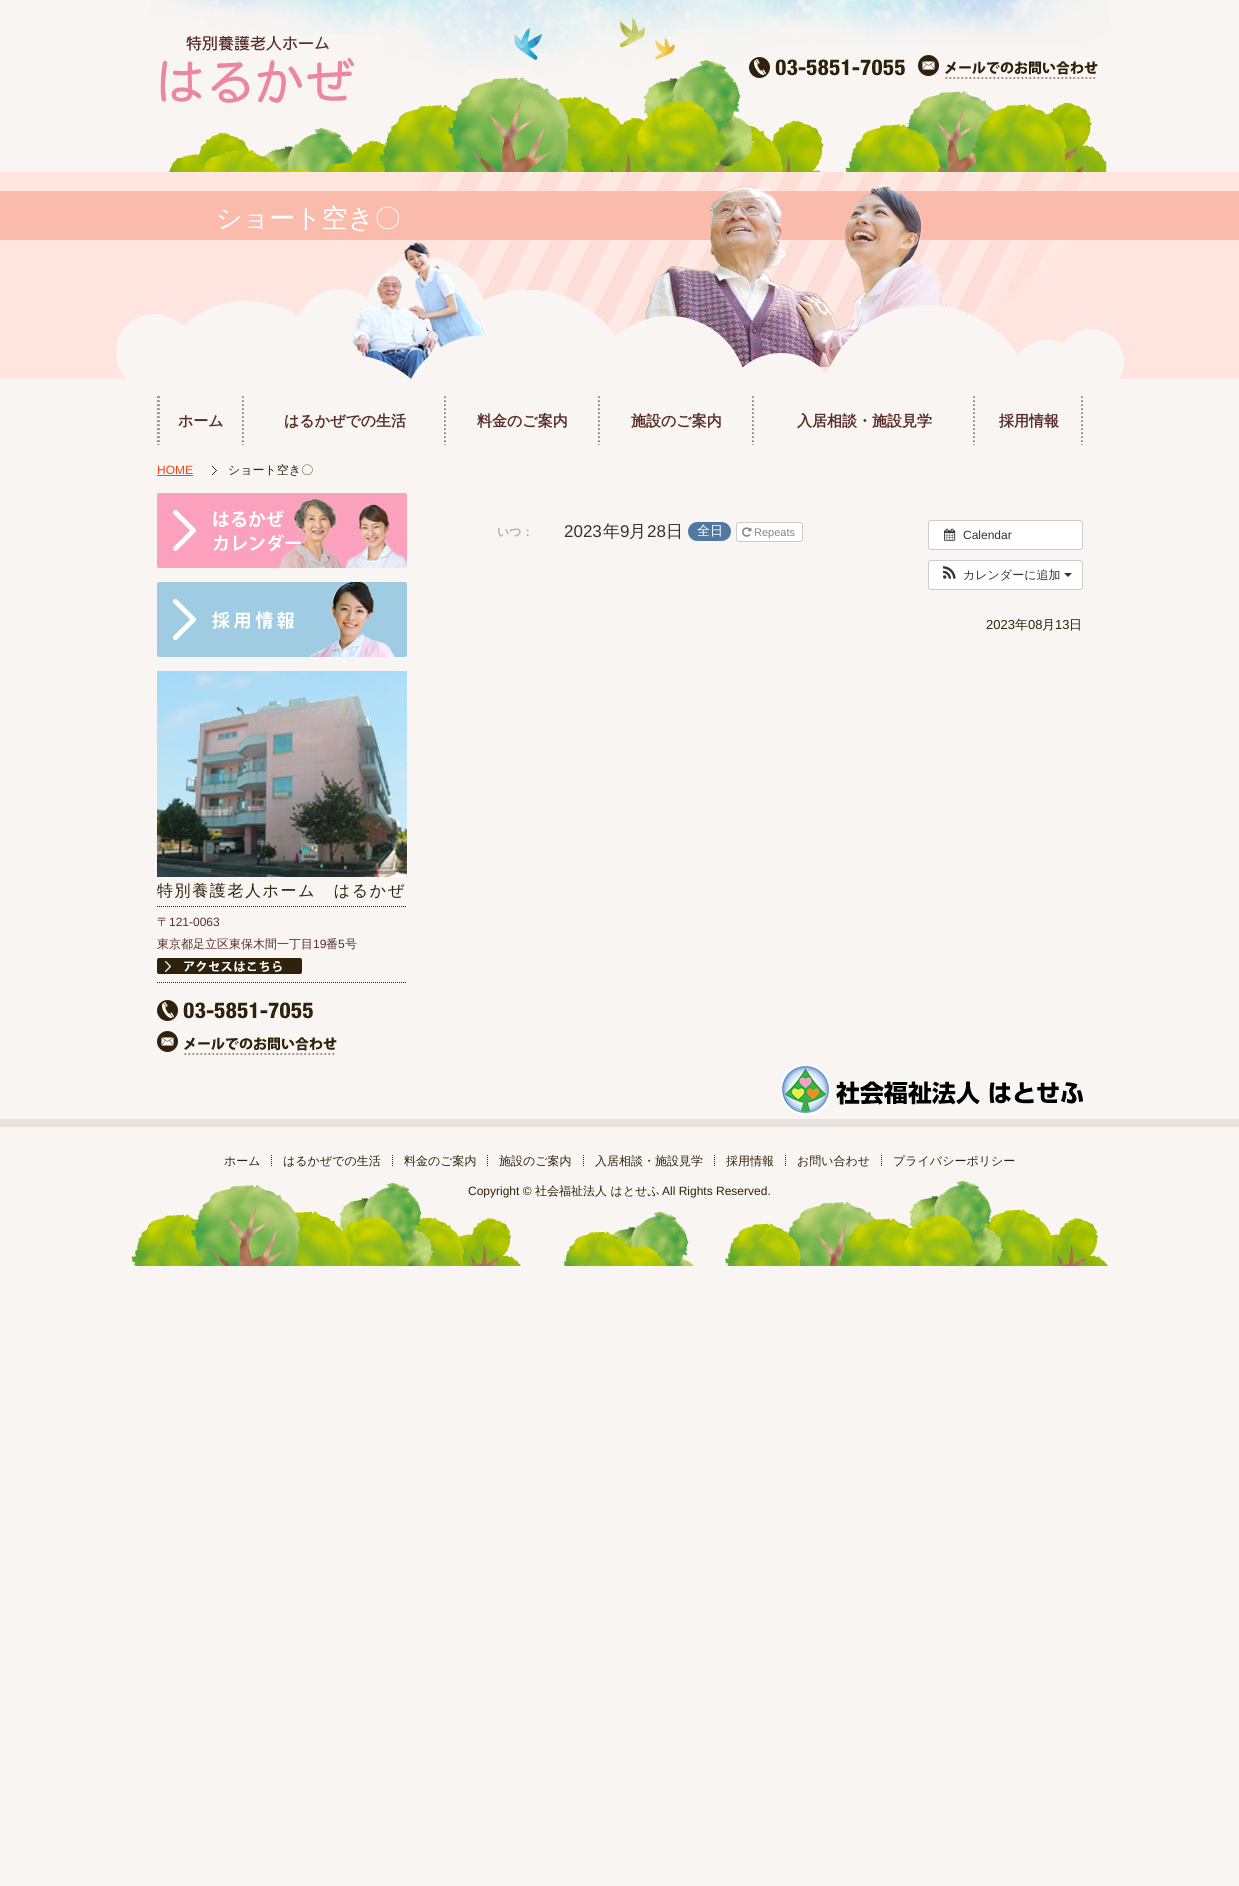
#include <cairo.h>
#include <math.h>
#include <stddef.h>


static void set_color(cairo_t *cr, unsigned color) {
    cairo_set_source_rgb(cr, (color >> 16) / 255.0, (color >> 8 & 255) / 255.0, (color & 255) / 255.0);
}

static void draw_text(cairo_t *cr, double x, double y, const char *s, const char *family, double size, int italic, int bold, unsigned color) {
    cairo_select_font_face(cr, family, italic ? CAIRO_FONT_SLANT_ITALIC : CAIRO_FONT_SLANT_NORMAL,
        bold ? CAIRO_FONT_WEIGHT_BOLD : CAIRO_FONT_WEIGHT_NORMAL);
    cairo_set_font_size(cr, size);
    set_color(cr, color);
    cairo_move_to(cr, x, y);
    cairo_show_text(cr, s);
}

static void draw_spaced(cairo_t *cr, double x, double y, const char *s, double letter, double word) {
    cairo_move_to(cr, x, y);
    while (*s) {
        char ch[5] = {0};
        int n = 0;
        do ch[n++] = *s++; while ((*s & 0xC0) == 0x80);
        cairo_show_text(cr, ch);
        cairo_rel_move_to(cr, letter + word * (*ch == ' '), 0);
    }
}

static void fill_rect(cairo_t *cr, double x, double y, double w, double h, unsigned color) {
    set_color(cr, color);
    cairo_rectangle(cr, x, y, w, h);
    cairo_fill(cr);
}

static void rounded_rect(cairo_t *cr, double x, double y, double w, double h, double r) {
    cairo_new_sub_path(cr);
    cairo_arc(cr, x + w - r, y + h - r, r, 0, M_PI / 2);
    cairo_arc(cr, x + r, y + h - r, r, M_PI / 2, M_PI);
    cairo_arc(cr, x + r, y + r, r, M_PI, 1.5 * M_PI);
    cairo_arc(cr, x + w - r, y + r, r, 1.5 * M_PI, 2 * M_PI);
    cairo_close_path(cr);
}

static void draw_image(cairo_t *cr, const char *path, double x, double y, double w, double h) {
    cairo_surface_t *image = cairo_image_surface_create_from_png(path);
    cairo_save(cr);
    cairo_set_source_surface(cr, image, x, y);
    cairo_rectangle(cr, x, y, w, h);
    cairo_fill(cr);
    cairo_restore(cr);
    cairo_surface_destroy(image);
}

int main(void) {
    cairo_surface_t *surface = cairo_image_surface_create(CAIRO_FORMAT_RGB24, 1239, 1886);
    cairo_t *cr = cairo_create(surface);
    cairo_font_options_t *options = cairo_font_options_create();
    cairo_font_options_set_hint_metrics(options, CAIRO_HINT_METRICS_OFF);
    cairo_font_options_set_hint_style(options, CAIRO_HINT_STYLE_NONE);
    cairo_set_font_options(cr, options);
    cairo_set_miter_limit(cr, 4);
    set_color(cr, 0xF8F5F2);
    cairo_paint(cr);
    draw_image(cr, "assets/img1.png", 150, 0, 960, 172);
    draw_image(cr, "assets/img2.png", 160, 35, 194, 68);
    draw_image(cr, "assets/img3.png", 749, 57, 156, 21);
    draw_image(cr, "assets/img4.png", 918, 55, 180, 24);
    draw_image(cr, "assets/img5.png", 0, 172, 1239, 207);
    draw_image(cr, "assets/img6.png", 116, 172, 1008, 207);
    draw_text(cr, 216, 227, "ショート空き〇", "WenQuanYi Zen Hei Medium", 26, 0, 0, 0xFFFFFF);
    draw_image(cr, "assets/img7.png", 157, 396, 3, 49);
    draw_image(cr, "assets/img8.png", 242, 396, 2, 49);
    draw_text(cr, 178, 426, "ホーム", "WenQuanYi Zen Hei", 15, 0, 1, 0x592F2A);
    draw_image(cr, "assets/img8.png", 444, 396, 2, 49);
    draw_text(cr, 284, 426, "はるかぜでの生活", "WenQuanYi Zen Hei", 15, 0, 1, 0x592F2A);
    draw_image(cr, "assets/img8.png", 598, 396, 2, 49);
    draw_text(cr, 477, 426, "料金のご案内", "WenQuanYi Zen Hei", 15, 0, 1, 0x592F2A);
    draw_image(cr, "assets/img8.png", 752, 396, 2, 49);
    draw_text(cr, 631, 426, "施設のご案内", "WenQuanYi Zen Hei", 15, 0, 1, 0x592F2A);
    draw_image(cr, "assets/img8.png", 973, 396, 2, 49);
    draw_text(cr, 797, 426, "入居相談・施設見学", "WenQuanYi Zen Hei", 15, 0, 1, 0x592F2A);
    draw_image(cr, "assets/img8.png", 1081, 396, 2, 49);
    draw_text(cr, 999, 426, "採用情報", "WenQuanYi Zen Hei", 15, 0, 1, 0x592F2A);
    draw_text(cr, 157, 474, "HOME", "Liberation Sans", 12, 0, 0, 0xFC4116);
    fill_rect(cr, 157, 475, 36, 1, 0xFC4116);
    draw_image(cr, "assets/img9.png", 212, 466, 5, 9);
    draw_text(cr, 228, 474, "ショート空き〇", "WenQuanYi Zen Hei Medium", 12, 0, 0, 0x30220A);
    draw_text(cr, 497, 536, "いつ：", "WenQuanYi Zen Hei", 12, 0, 1, 0xAAAAAA);
    draw_text(cr, 564, 537, "2023", "Liberation Sans", 17, 0, 0, 0x333333);
    draw_text(cr, 603, 537, "年", "WenQuanYi Zen Hei Medium", 17, 0, 0, 0x333333);
    draw_text(cr, 620, 537, "9", "Liberation Sans", 17, 0, 0, 0x333333);
    draw_text(cr, 629, 537, "月", "WenQuanYi Zen Hei Medium", 17, 0, 0, 0x333333);
    draw_text(cr, 647, 537, "28", "Liberation Sans", 17, 0, 0, 0x333333);
    draw_text(cr, 666, 537, "日", "WenQuanYi Zen Hei Medium", 17, 0, 0, 0x333333);
    set_color(cr, 0x5079A2);
    rounded_rect(cr, 688, 522, 43, 19, 9.5);
    cairo_fill(cr);
    draw_text(cr, 697, 535, "全日", "WenQuanYi Zen Hei Medium", 13, 0, 0, 0xFFFFFF);
    rounded_rect(cr, 736.5, 522.5, 66, 19, 2.5);
    cairo_fill_preserve(cr);
    set_color(cr, 0xCCCCCC);
    cairo_set_line_width(cr, 1);
    cairo_stroke(cr);
    draw_image(cr, "assets/img10.png", 742, 527, 10, 10);
    draw_text(cr, 754, 536, "Repeats", "Liberation Sans", 11, 0, 0, 0x858585);
    set_color(cr, 0xFFFFFF);
    rounded_rect(cr, 928.5, 520.5, 154, 29, 2.5);
    cairo_fill_preserve(cr);
    set_color(cr, 0xCCCCCC);
    cairo_stroke(cr);
    draw_image(cr, "assets/img11.png", 944, 528, 12, 13);
    draw_text(cr, 963, 539, "Calendar", "Liberation Sans", 12, 0, 0, 0x333333);
    set_color(cr, 0xFFFFFF);
    rounded_rect(cr, 928.5, 560.5, 154, 29, 2.5);
    cairo_fill_preserve(cr);
    set_color(cr, 0xCCCCCC);
    cairo_stroke(cr);
    draw_image(cr, "assets/img12.png", 943, 566, 13, 13);
    draw_text(cr, 963, 579, "カレンダーに追加", "WenQuanYi Zen Hei Medium", 12, 0, 0, 0x333333);
    cairo_new_path(cr);
    cairo_move_to(cr, 1064, 573);
    cairo_line_to(cr, 1072, 573);
    cairo_line_to(cr, 1068, 577);
    cairo_close_path(cr);
    cairo_fill(cr);
    draw_text(cr, 986, 629, "2023", "Liberation Sans", 13, 0, 0, 0x30220A);
    draw_text(cr, 1015, 629, "年", "WenQuanYi Zen Hei Medium", 13, 0, 0, 0x30220A);
    draw_text(cr, 1028, 629, "08", "Liberation Sans", 13, 0, 0, 0x30220A);
    draw_text(cr, 1042, 629, "月", "WenQuanYi Zen Hei Medium", 13, 0, 0, 0x30220A);
    draw_text(cr, 1055, 629, "13", "Liberation Sans", 13, 0, 0, 0x30220A);
    draw_text(cr, 1069, 629, "日", "WenQuanYi Zen Hei Medium", 13, 0, 0, 0x30220A);
    draw_image(cr, "assets/img13.png", 157, 493, 250, 75);
    draw_image(cr, "assets/img14.png", 157, 582, 250, 75);
    draw_image(cr, "assets/img15.png", 157, 671, 250, 206);
    cairo_set_font_size(cr, 16);
    draw_spaced(cr, 157, 896, "特別養護老人ホーム　はるかぜ", 1.6, 0);
    cairo_new_path(cr);
    cairo_move_to(cr, 157, 906.5);
    cairo_line_to(cr, 407, 906.5);
    cairo_set_dash(cr, (double[]){1, 1}, 2, 0);
    cairo_stroke(cr);
    cairo_new_path(cr);
    cairo_move_to(cr, 157, 982.5);
    cairo_line_to(cr, 407, 982.5);
    cairo_stroke(cr);
    draw_text(cr, 157, 926, "〒", "WenQuanYi Zen Hei Medium", 12, 0, 0, 0x592F2A);
    draw_text(cr, 169, 926, "121-0063", "Liberation Sans", 12, 0, 0, 0x592F2A);
    draw_text(cr, 157, 948, "東京都足立区東保木間一丁目", "WenQuanYi Zen Hei Medium", 12, 0, 0, 0x592F2A);
    draw_text(cr, 313, 948, "19", "Liberation Sans", 12, 0, 0, 0x592F2A);
    draw_text(cr, 326, 948, "番", "WenQuanYi Zen Hei Medium", 12, 0, 0, 0x592F2A);
    draw_text(cr, 338, 948, "5", "Liberation Sans", 12, 0, 0, 0x592F2A);
    draw_text(cr, 345, 948, "号", "WenQuanYi Zen Hei Medium", 12, 0, 0, 0x592F2A);
    draw_image(cr, "assets/img16.png", 157, 958, 145, 16);
    draw_image(cr, "assets/img3.png", 157, 1000, 156, 21);
    draw_image(cr, "assets/img4.png", 157, 1031, 180, 24);
    draw_image(cr, "assets/img17.png", 781, 1065, 302, 50);
    draw_image(cr, "assets/img18.png", 131, 1180, 977, 86);
    fill_rect(cr, 0, 1119, 1239, 8, 0xE8E1DE);
    draw_text(cr, 224, 1165, "ホーム", "WenQuanYi Zen Hei Medium", 12, 0, 0, 0x30220A);
    cairo_new_path(cr);
    cairo_move_to(cr, 271.5, 1155);
    cairo_line_to(cr, 271.5, 1167);
    cairo_stroke(cr);
    draw_text(cr, 283, 1165, "はるかぜでの生活", "WenQuanYi Zen Hei Medium", 12, 0, 0, 0x30220A);
    cairo_new_path(cr);
    cairo_move_to(cr, 392.5, 1155);
    cairo_line_to(cr, 392.5, 1167);
    cairo_stroke(cr);
    draw_text(cr, 404, 1165, "料金のご案内", "WenQuanYi Zen Hei Medium", 12, 0, 0, 0x30220A);
    cairo_new_path(cr);
    cairo_move_to(cr, 487.5, 1155);
    cairo_line_to(cr, 487.5, 1167);
    cairo_stroke(cr);
    draw_text(cr, 499, 1165, "施設のご案内", "WenQuanYi Zen Hei Medium", 12, 0, 0, 0x30220A);
    cairo_new_path(cr);
    cairo_move_to(cr, 583.5, 1155);
    cairo_line_to(cr, 583.5, 1167);
    cairo_stroke(cr);
    draw_text(cr, 595, 1165, "入居相談・施設見学", "WenQuanYi Zen Hei Medium", 12, 0, 0, 0x30220A);
    cairo_new_path(cr);
    cairo_move_to(cr, 714.5, 1155);
    cairo_line_to(cr, 714.5, 1167);
    cairo_stroke(cr);
    draw_text(cr, 726, 1165, "採用情報", "WenQuanYi Zen Hei Medium", 12, 0, 0, 0x30220A);
    cairo_new_path(cr);
    cairo_move_to(cr, 785.5, 1155);
    cairo_line_to(cr, 785.5, 1167);
    cairo_stroke(cr);
    draw_text(cr, 797, 1165, "お問い合わせ", "WenQuanYi Zen Hei Medium", 12, 0, 0, 0x30220A);
    cairo_new_path(cr);
    cairo_move_to(cr, 881.5, 1155);
    cairo_line_to(cr, 881.5, 1167);
    cairo_stroke(cr);
    draw_text(cr, 893, 1165, "プライバシーポリシー", "WenQuanYi Zen Hei Medium", 12, 0, 0, 0x30220A);
    draw_text(cr, 468, 1195, "Copyright ©", "Liberation Sans", 12, 0, 0, 0x30220A);
    draw_text(cr, 535, 1195, "社会福祉法人 はとせふ", "WenQuanYi Zen Hei Medium", 12, 0, 0, 0x30220A);
    draw_text(cr, 662, 1195, "All Rights Reserved.", "Liberation Sans", 12, 0, 0, 0x30220A);
    cairo_surface_write_to_png(surface, "output.png");
    cairo_font_options_destroy(options);
    cairo_destroy(cr);
    cairo_surface_destroy(surface);
    return 0;
}
